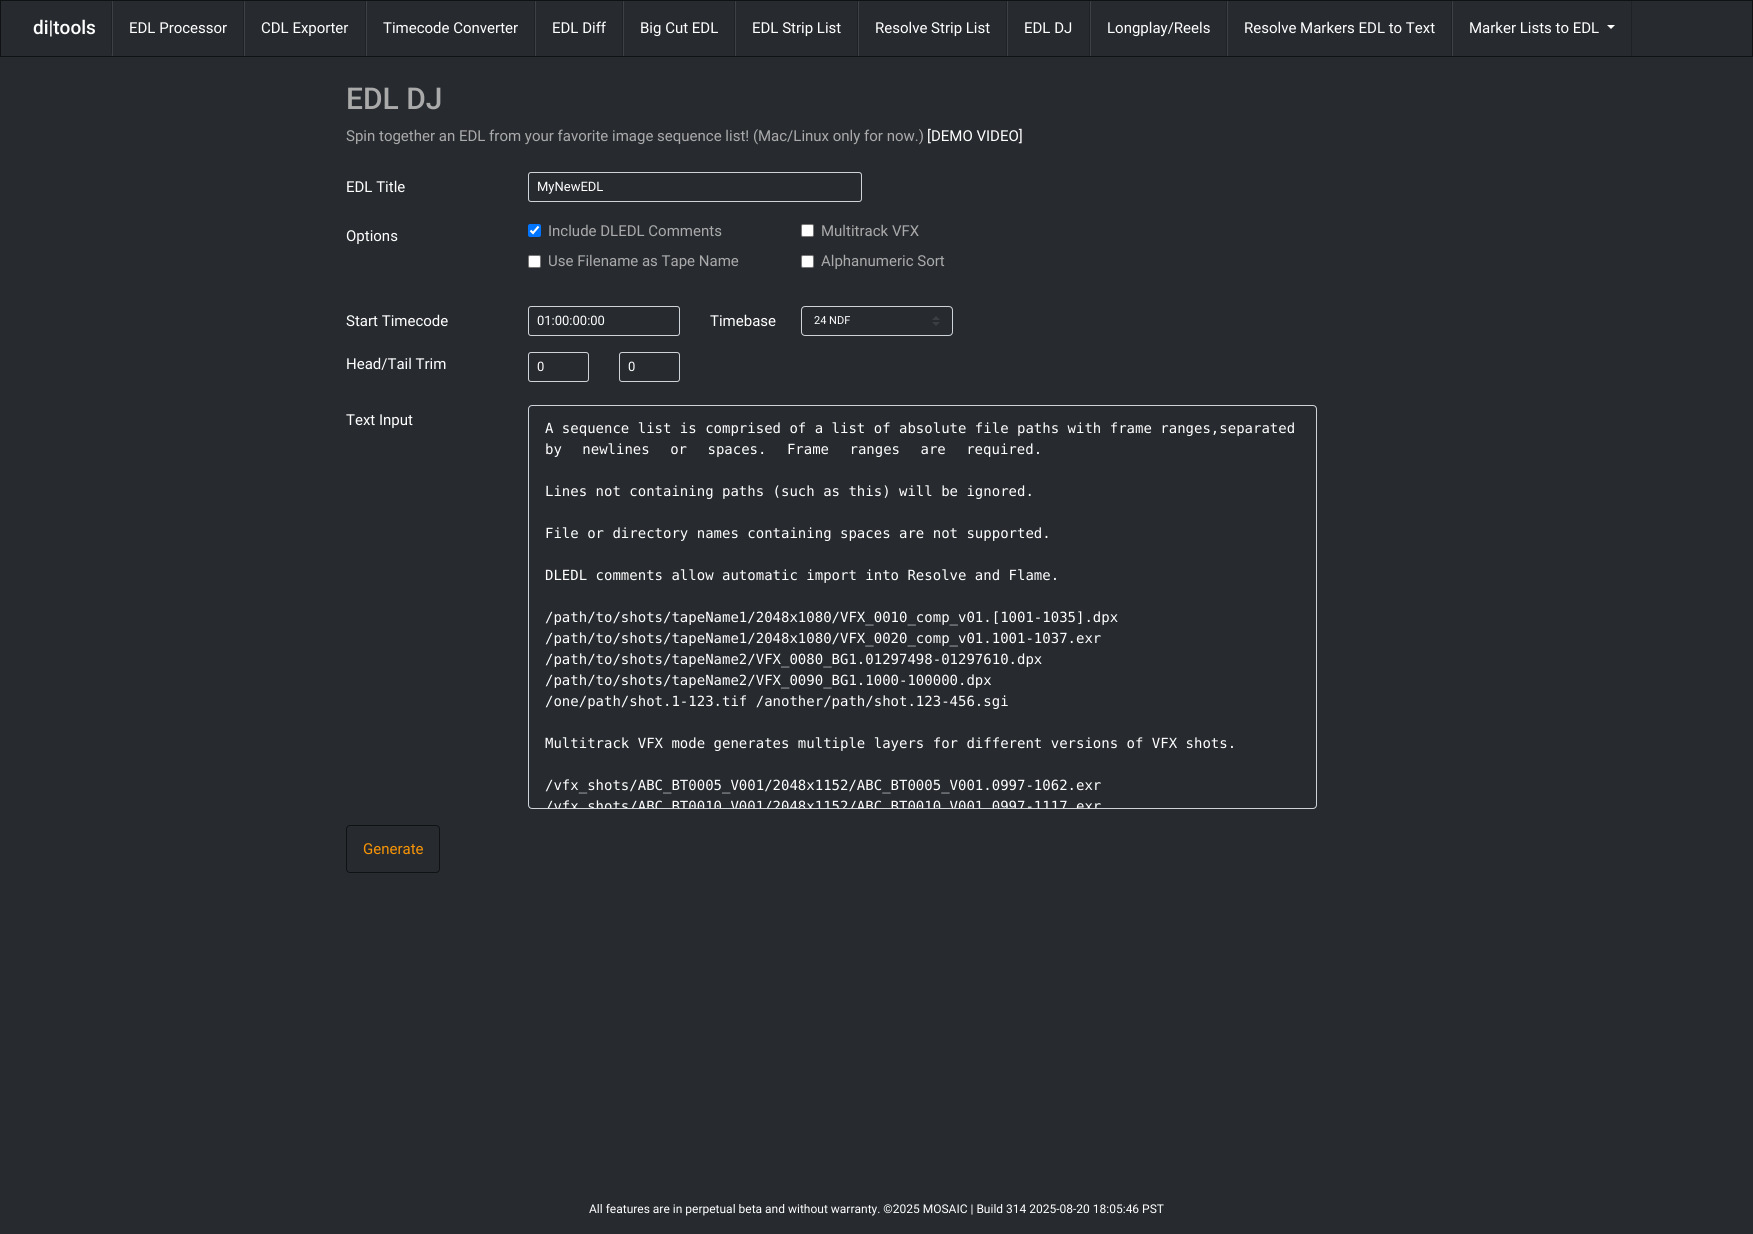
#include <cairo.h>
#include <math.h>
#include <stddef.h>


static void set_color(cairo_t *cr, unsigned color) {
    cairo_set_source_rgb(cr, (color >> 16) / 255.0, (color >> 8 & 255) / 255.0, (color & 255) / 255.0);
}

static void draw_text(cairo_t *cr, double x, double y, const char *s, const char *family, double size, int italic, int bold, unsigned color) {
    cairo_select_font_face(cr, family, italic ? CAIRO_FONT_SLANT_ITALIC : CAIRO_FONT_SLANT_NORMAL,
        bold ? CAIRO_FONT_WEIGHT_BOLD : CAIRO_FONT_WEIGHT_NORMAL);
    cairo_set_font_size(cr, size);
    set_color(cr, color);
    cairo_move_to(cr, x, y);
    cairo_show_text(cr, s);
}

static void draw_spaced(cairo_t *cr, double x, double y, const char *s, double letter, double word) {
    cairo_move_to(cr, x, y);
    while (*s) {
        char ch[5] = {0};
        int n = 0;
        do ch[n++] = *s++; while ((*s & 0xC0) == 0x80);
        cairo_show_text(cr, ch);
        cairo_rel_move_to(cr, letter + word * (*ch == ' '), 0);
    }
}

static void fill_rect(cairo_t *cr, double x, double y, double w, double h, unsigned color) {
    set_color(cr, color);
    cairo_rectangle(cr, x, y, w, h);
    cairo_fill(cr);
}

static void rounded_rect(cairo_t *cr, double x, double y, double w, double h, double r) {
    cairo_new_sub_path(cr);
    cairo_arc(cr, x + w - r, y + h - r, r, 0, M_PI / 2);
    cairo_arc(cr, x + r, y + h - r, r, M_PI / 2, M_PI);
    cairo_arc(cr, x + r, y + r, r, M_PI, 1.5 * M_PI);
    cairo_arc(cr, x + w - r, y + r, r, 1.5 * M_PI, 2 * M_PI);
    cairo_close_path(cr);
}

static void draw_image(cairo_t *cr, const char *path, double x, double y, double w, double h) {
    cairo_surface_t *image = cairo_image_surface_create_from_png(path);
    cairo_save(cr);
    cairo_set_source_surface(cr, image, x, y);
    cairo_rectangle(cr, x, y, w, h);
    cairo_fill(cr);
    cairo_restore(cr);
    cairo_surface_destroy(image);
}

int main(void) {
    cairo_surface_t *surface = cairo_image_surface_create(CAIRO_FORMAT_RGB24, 1753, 1234);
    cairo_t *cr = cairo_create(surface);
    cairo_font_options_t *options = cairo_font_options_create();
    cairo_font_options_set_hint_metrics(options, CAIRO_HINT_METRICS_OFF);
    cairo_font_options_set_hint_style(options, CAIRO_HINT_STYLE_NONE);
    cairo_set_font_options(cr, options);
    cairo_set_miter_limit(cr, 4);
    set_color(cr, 0x272B30);
    cairo_paint(cr);
    cairo_rectangle(cr, 0.5, 0.5, 1752, 56);
    set_color(cr, 0x101113);
    cairo_set_line_width(cr, 1);
    cairo_stroke(cr);
    fill_rect(cr, 111, 2, 1, 52, 0x1F2226);
    draw_text(cr, 33, 34, "di|tools", "Roboto Medium", 19, 0, 0, 0xFFFFFF);
    fill_rect(cr, 243, 1, 1, 55, 0x1F2226);
    fill_rect(cr, 112, 1, 1, 55, 0x3D4045);
    draw_text(cr, 129, 33, "EDL Processor", "Roboto", 15, 0, 0, 0xFFFFFF);
    fill_rect(cr, 365, 1, 1, 55, 0x1F2226);
    fill_rect(cr, 244, 1, 1, 55, 0x3D4045);
    draw_text(cr, 261, 33, "CDL Exporter", "Roboto", 15, 0, 0, 0xFFFFFF);
    fill_rect(cr, 534, 1, 1, 55, 0x1F2226);
    fill_rect(cr, 366, 1, 1, 55, 0x3D4045);
    draw_text(cr, 383, 33, "Timecode Converter", "Roboto", 15, 0, 0, 0xFFFFFF);
    fill_rect(cr, 622, 1, 1, 55, 0x1F2226);
    fill_rect(cr, 535, 1, 1, 55, 0x3D4045);
    draw_text(cr, 552, 33, "EDL Diff", "Roboto", 15, 0, 0, 0xFFFFFF);
    fill_rect(cr, 734, 1, 1, 55, 0x1F2226);
    fill_rect(cr, 623, 1, 1, 55, 0x3D4045);
    draw_text(cr, 640, 33, "Big Cut EDL", "Roboto", 15, 0, 0, 0xFFFFFF);
    fill_rect(cr, 857, 1, 1, 55, 0x1F2226);
    fill_rect(cr, 735, 1, 1, 55, 0x3D4045);
    draw_text(cr, 752, 33, "EDL Strip List", "Roboto", 15, 0, 0, 0xFFFFFF);
    fill_rect(cr, 1006, 1, 1, 55, 0x1F2226);
    fill_rect(cr, 858, 1, 1, 55, 0x3D4045);
    draw_text(cr, 875, 33, "Resolve Strip List", "Roboto", 15, 0, 0, 0xFFFFFF);
    fill_rect(cr, 1089, 1, 1, 55, 0x1F2226);
    fill_rect(cr, 1007, 1, 1, 55, 0x3D4045);
    draw_text(cr, 1024, 33, "EDL DJ", "Roboto", 15, 0, 0, 0xFFFFFF);
    fill_rect(cr, 1226, 1, 1, 55, 0x1F2226);
    fill_rect(cr, 1090, 1, 1, 55, 0x3D4045);
    draw_text(cr, 1107, 33, "Longplay/Reels", "Roboto", 15, 0, 0, 0xFFFFFF);
    fill_rect(cr, 1451, 1, 1, 55, 0x1F2226);
    fill_rect(cr, 1227, 1, 1, 55, 0x3D4045);
    draw_text(cr, 1244, 33, "Resolve Markers EDL to Text", "Roboto", 15, 0, 0, 0xFFFFFF);
    fill_rect(cr, 1631, 1, 1, 55, 0x1F2226);
    fill_rect(cr, 1452, 1, 1, 55, 0x3D4045);
    draw_text(cr, 1469, 33, "Marker Lists to EDL", "Roboto", 15, 0, 0, 0xFFFFFF);
    cairo_new_path(cr);
    cairo_move_to(cr, 1607, 25);
    cairo_line_to(cr, 1615, 25);
    cairo_line_to(cr, 1611, 29);
    cairo_close_path(cr);
    cairo_fill(cr);
    draw_text(cr, 346, 109, "EDL DJ", "Roboto Medium", 30, 0, 0, 0xAAAAAA);
    draw_text(cr, 346, 141, "Spin together an EDL from your favorite image sequence list! (Mac/Linux only for now.)", "Roboto", 15, 0, 0, 0xAAAAAA);
    draw_text(cr, 927, 141, "[DEMO VIDEO]", "Roboto", 15, 0, 0, 0xFFFFFF);
    draw_text(cr, 346, 192, "EDL Title", "Roboto", 15, 0, 0, 0xFFFFFF);
    rounded_rect(cr, 528.5, 172.5, 333, 29, 2.5);
    set_color(cr, 0xCED4DA);
    cairo_stroke(cr);
    draw_text(cr, 537, 191, "MyNewEDL", "Roboto", 13, 0, 0, 0xFFFFFF);
    draw_text(cr, 346, 241, "Options", "Roboto", 15, 0, 0, 0xFFFFFF);
    set_color(cr, 0x0075FF);
    rounded_rect(cr, 528, 224, 13, 13, 2);
    cairo_fill(cr);
    cairo_new_path(cr);
    cairo_move_to(cr, 530.5, 230.5);
    cairo_line_to(cr, 533, 233);
    cairo_line_to(cr, 538.5, 226.5);
    set_color(cr, 0xFFFFFF);
    cairo_set_line_width(cr, 2.1);
    cairo_stroke(cr);
    draw_text(cr, 548, 236, "Include DLEDL Comments", "Roboto", 15, 0, 0, 0xAAAAAA);
    set_color(cr, 0xFFFFFF);
    rounded_rect(cr, 528.5, 255.5, 12, 12, 1.5);
    cairo_fill_preserve(cr);
    set_color(cr, 0x767676);
    cairo_set_line_width(cr, 1);
    cairo_stroke(cr);
    draw_text(cr, 548, 266, "Use Filename as Tape Name", "Roboto", 15, 0, 0, 0xAAAAAA);
    set_color(cr, 0xFFFFFF);
    rounded_rect(cr, 801.5, 224.5, 12, 12, 1.5);
    cairo_fill_preserve(cr);
    set_color(cr, 0x767676);
    cairo_stroke(cr);
    draw_text(cr, 821, 236, "Multitrack VFX", "Roboto", 15, 0, 0, 0xAAAAAA);
    set_color(cr, 0xFFFFFF);
    rounded_rect(cr, 801.5, 255.5, 12, 12, 1.5);
    cairo_fill_preserve(cr);
    set_color(cr, 0x767676);
    cairo_stroke(cr);
    draw_text(cr, 821, 266, "Alphanumeric Sort", "Roboto", 15, 0, 0, 0xAAAAAA);
    draw_text(cr, 346, 326, "Start Timecode", "Roboto", 15, 0, 0, 0xFFFFFF);
    rounded_rect(cr, 528.5, 306.5, 151, 29, 2.5);
    set_color(cr, 0xCED4DA);
    cairo_stroke(cr);
    draw_text(cr, 537, 325, "01:00:00:00", "Roboto", 13, 0, 0, 0xFFFFFF);
    draw_text(cr, 710, 326, "Timebase", "Roboto", 15, 0, 0, 0xFFFFFF);
    draw_image(cr, "assets/img1.png", 932, 316, 8, 10);
    rounded_rect(cr, 801.5, 306.5, 151, 29, 3.5);
    set_color(cr, 0xCED4DA);
    cairo_stroke(cr);
    draw_text(cr, 814, 324, "24 NDF", "Roboto", 11, 0, 0, 0xFFFFFF);
    draw_text(cr, 346, 369, "Head/Tail Trim", "Roboto", 15, 0, 0, 0xFFFFFF);
    rounded_rect(cr, 528.5, 352.5, 60, 29, 2.5);
    set_color(cr, 0xCED4DA);
    cairo_stroke(cr);
    draw_text(cr, 537, 371, "0", "Roboto", 13, 0, 0, 0xFFFFFF);
    rounded_rect(cr, 619.5, 352.5, 60, 29, 2.5);
    set_color(cr, 0xCED4DA);
    cairo_stroke(cr);
    draw_text(cr, 628, 371, "0", "Roboto", 13, 0, 0, 0xFFFFFF);
    draw_text(cr, 346, 425, "Text Input", "Roboto", 15, 0, 0, 0xFFFFFF);
    rounded_rect(cr, 528.5, 405.5, 788, 403, 3.5);
    set_color(cr, 0xCED4DA);
    cairo_stroke(cr);
    draw_text(cr, 545, 433, "A sequence list is comprised of a list of absolute file paths with frame ranges,separated", "DejaVu Sans Mono", 14, 0, 0, 0xFFFFFF);
    draw_spaced(cr, 545, 454, "by newlines or spaces. Frame ranges are required.", 0, 12);
    draw_text(cr, 545, 496, "Lines not containing paths (such as this) will be ignored.", "DejaVu Sans Mono", 14, 0, 0, 0xFFFFFF);
    draw_text(cr, 545, 538, "File or directory names containing spaces are not supported.", "DejaVu Sans Mono", 14, 0, 0, 0xFFFFFF);
    draw_text(cr, 545, 580, "DLEDL comments allow automatic import into Resolve and Flame.", "DejaVu Sans Mono", 14, 0, 0, 0xFFFFFF);
    draw_text(cr, 545, 622, "/path/to/shots/tapeName1/2048x1080/VFX_0010_comp_v01.[1001-1035].dpx", "DejaVu Sans Mono", 14, 0, 0, 0xFFFFFF);
    draw_text(cr, 545, 643, "/path/to/shots/tapeName1/2048x1080/VFX_0020_comp_v01.1001-1037.exr", "DejaVu Sans Mono", 14, 0, 0, 0xFFFFFF);
    draw_text(cr, 545, 664, "/path/to/shots/tapeName2/VFX_0080_BG1.01297498-01297610.dpx", "DejaVu Sans Mono", 14, 0, 0, 0xFFFFFF);
    draw_text(cr, 545, 685, "/path/to/shots/tapeName2/VFX_0090_BG1.1000-100000.dpx", "DejaVu Sans Mono", 14, 0, 0, 0xFFFFFF);
    draw_text(cr, 545, 706, "/one/path/shot.1-123.tif /another/path/shot.123-456.sgi", "DejaVu Sans Mono", 14, 0, 0, 0xFFFFFF);
    draw_text(cr, 545, 748, "Multitrack VFX mode generates multiple layers for different versions of VFX shots.", "DejaVu Sans Mono", 14, 0, 0, 0xFFFFFF);
    draw_text(cr, 545, 790, "/vfx_shots/ABC_BT0005_V001/2048x1152/ABC_BT0005_V001.0997-1062.exr", "DejaVu Sans Mono", 14, 0, 0, 0xFFFFFF);
    cairo_save(cr);
    rounded_rect(cr, 529, 406, 787, 402, 3);
    cairo_clip(cr);
    draw_text(cr, 545, 811, "/vfx_shots/ABC_BT0010_V001/2048x1152/ABC_BT0010_V001.0997-1117.exr", "DejaVu Sans Mono", 14, 0, 0, 0xFFFFFF);
    cairo_restore(cr);
    rounded_rect(cr, 346.5, 825.5, 93, 47, 3.5);
    set_color(cr, 0x101113);
    cairo_stroke(cr);
    draw_text(cr, 363, 854, "Generate", "Roboto", 15, 0, 0, 0xF89406);
    draw_text(cr, 589, 1213, "All features are in perpetual beta and without warranty. ©2025 MOSAIC | Build 314 2025-08-20 18:05:46 PST", "Roboto", 12, 0, 0, 0xFFFFFF);
    cairo_surface_write_to_png(surface, "output.png");
    cairo_font_options_destroy(options);
    cairo_destroy(cr);
    cairo_surface_destroy(surface);
    return 0;
}
